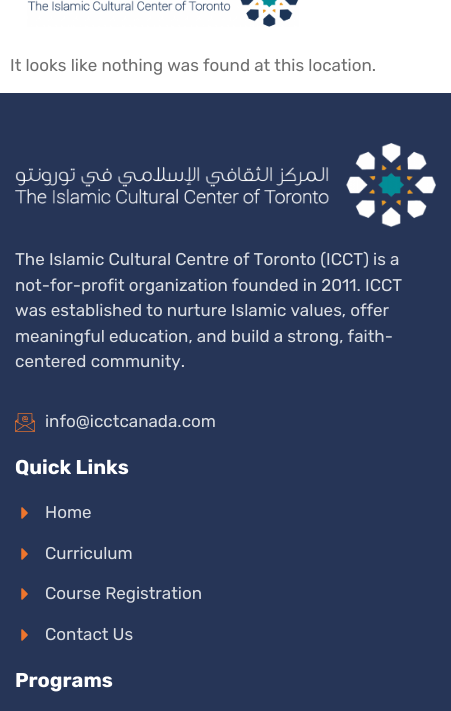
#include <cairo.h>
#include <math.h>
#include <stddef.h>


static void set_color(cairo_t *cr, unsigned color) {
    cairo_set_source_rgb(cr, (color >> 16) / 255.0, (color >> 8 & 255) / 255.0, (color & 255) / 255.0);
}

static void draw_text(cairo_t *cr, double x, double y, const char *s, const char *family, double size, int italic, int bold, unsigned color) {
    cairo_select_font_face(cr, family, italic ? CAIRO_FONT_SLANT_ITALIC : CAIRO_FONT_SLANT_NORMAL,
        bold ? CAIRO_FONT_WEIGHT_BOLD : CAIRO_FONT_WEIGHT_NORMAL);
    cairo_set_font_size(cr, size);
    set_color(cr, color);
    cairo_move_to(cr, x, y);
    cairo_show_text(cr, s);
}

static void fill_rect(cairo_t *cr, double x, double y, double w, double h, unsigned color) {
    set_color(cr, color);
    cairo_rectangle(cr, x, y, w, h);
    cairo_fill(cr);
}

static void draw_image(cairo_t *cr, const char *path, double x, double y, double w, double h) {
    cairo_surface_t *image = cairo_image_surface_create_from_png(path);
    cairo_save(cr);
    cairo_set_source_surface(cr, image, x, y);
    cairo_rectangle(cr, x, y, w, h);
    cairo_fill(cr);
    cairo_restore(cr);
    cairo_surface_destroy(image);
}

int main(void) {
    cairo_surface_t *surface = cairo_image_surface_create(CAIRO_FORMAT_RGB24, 451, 711);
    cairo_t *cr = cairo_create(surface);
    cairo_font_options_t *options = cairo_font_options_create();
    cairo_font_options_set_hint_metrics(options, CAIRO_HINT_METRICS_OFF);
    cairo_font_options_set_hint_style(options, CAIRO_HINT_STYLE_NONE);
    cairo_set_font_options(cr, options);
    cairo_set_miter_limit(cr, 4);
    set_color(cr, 0xFFFFFF);
    cairo_paint(cr);
    draw_image(cr, "assets/img1.png", 27, 0, 272, 27);
    draw_text(cr, 10, 71, "It looks like nothing was found at this location.", "Rubik", 17, 0, 0, 0x6E6E6E);
    fill_rect(cr, 0, 93, 451, 618, 0x263557);
    draw_image(cr, "assets/img2.png", 15, 143, 421, 84);
    draw_text(cr, 15, 265, "The Islamic Cultural Centre of Toronto (ICCT) is a", "Rubik", 17, 0, 0, 0xDADDE2);
    draw_text(cr, 15, 291, "not-for-profit organization founded in 2011. ICCT", "Rubik", 17, 0, 0, 0xDADDE2);
    draw_text(cr, 15, 316, "was established to nurture Islamic values, offer", "Rubik", 17, 0, 0, 0xDADDE2);
    draw_text(cr, 15, 342, "meaningful education, and build a strong, faith-", "Rubik", 17, 0, 0, 0xDADDE2);
    draw_text(cr, 15, 367, "centered community.", "Rubik", 17, 0, 0, 0xDADDE2);
    draw_image(cr, "assets/img3.png", 15, 413, 20, 19);
    draw_text(cr, 45, 427, "info@icctcanada.com", "Rubik", 17, 0, 0, 0xDADDE2);
    draw_text(cr, 15, 474, "Quick Links", "Rubik", 20, 0, 1, 0xFFFFFF);
    draw_image(cr, "assets/img4.png", 21, 507, 7, 12);
    draw_text(cr, 45, 518, "Home", "Rubik", 17, 0, 0, 0xDADDE2);
    draw_image(cr, "assets/img4.png", 21, 548, 7, 12);
    draw_text(cr, 45, 559, "Curriculum", "Rubik", 17, 0, 0, 0xDADDE2);
    draw_image(cr, "assets/img4.png", 21, 588, 7, 12);
    draw_text(cr, 45, 599, "Course Registration", "Rubik", 17, 0, 0, 0xDADDE2);
    draw_image(cr, "assets/img4.png", 21, 629, 7, 12);
    draw_text(cr, 45, 640, "Contact Us", "Rubik", 17, 0, 0, 0xDADDE2);
    draw_text(cr, 15, 687, "Programs", "Rubik", 20, 0, 1, 0xFFFFFF);
    cairo_surface_write_to_png(surface, "output.png");
    cairo_font_options_destroy(options);
    cairo_destroy(cr);
    cairo_surface_destroy(surface);
    return 0;
}
